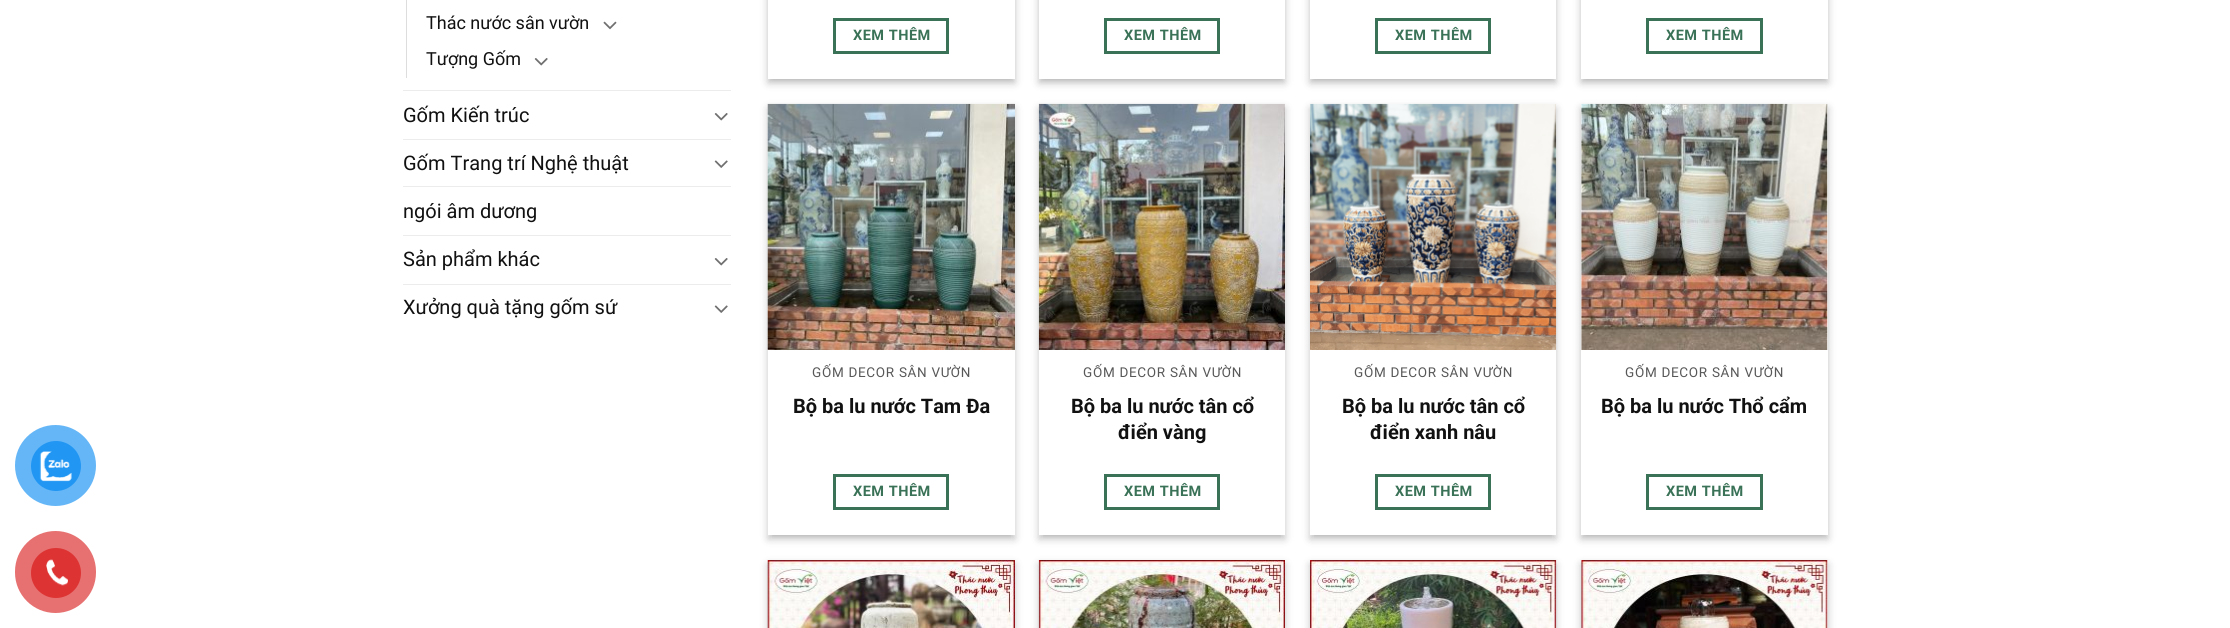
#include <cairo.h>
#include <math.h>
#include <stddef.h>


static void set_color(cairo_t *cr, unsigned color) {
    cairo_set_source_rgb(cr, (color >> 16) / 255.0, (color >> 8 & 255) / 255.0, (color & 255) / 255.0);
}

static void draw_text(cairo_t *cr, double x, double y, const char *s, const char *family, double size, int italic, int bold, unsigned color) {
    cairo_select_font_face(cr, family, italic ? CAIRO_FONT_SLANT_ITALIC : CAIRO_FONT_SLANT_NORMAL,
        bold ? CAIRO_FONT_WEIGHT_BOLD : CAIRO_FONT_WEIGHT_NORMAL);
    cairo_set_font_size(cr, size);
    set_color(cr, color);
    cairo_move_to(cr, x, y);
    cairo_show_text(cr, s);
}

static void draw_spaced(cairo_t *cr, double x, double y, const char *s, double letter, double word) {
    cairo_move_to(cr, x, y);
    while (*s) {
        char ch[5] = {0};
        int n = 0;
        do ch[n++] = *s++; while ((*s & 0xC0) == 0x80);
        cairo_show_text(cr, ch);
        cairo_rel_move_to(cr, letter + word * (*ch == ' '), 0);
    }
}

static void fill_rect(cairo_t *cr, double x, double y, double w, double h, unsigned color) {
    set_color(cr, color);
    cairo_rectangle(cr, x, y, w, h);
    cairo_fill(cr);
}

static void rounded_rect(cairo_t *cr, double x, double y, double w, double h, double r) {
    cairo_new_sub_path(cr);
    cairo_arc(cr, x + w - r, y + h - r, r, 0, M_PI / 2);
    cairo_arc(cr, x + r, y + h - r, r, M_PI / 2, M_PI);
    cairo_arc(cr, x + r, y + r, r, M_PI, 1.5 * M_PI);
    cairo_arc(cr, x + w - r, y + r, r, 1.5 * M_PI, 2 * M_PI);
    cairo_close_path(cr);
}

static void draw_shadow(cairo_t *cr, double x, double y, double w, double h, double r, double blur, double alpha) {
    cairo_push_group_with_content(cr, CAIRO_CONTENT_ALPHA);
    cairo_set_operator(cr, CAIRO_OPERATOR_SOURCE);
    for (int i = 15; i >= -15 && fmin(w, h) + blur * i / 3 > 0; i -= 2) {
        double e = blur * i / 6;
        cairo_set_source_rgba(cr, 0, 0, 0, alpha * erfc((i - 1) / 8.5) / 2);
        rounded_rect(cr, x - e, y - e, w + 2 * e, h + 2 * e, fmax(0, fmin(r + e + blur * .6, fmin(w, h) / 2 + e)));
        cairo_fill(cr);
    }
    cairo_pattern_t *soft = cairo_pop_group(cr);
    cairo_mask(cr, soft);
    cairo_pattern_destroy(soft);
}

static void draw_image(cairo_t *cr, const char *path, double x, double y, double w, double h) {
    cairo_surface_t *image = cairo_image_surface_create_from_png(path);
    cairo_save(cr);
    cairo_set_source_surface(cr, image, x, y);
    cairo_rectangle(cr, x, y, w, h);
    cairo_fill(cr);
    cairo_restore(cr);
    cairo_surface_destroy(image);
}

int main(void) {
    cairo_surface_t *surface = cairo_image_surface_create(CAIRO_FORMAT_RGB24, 2230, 628);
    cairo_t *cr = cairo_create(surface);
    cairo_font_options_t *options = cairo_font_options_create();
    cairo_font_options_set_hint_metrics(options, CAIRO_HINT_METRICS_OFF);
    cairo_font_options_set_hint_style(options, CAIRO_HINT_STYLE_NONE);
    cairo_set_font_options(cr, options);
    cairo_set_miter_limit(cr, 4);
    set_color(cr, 0xFFFFFF);
    cairo_paint(cr);
    fill_rect(cr, 406, 0, 1, 78, 0xDDDDDD);
    draw_text(cr, 426, 29, "Thác nước sân vườn", "Roboto", 18, 0, 0, 0x111111);
    draw_image(cr, "assets/img1.png", 603, 21, 14, 9);
    draw_text(cr, 426, 65, "Tượng Gốm", "Roboto", 18, 0, 0, 0x111111);
    draw_image(cr, "assets/img2.png", 534, 58, 14, 8);
    fill_rect(cr, 403, 90, 328, 1, 0xECECEC);
    draw_text(cr, 403, 122, "Gốm Kiến trúc", "Roboto", 20, 0, 0, 0x111111);
    draw_image(cr, "assets/img2.png", 714, 113, 14, 8);
    fill_rect(cr, 403, 139, 328, 1, 0xECECEC);
    draw_text(cr, 403, 170, "Gốm Trang trí Nghệ thuật", "Roboto", 20, 0, 0, 0x111111);
    draw_image(cr, "assets/img3.png", 714, 160, 14, 8);
    fill_rect(cr, 403, 186, 328, 1, 0xECECEC);
    draw_text(cr, 403, 218, "ngói âm dương", "Roboto", 20, 0, 0, 0x111111);
    fill_rect(cr, 403, 235, 328, 1, 0xECECEC);
    draw_text(cr, 403, 266, "Sản phẩm khác", "Roboto", 20, 0, 0, 0x111111);
    draw_image(cr, "assets/img2.png", 714, 258, 14, 8);
    fill_rect(cr, 403, 284, 328, 1, 0xECECEC);
    draw_text(cr, 403, 314, "Xưởng quà tặng gốm sứ", "Roboto", 20, 0, 0, 0x111111);
    draw_image(cr, "assets/img3.png", 714, 305, 14, 8);
    set_color(cr, 0x000000);
    draw_shadow(cr, 768, -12, 247, 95, 0, 4, 0.23);
    draw_shadow(cr, 773, -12, 237, 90, 0, 4, 0.16);
    fill_rect(cr, 768, 0, 247, 79, 0xFFFFFF);
    cairo_rectangle(cr, 834.5, 19.5, 113, 33);
    set_color(cr, 0x3A7257);
    cairo_set_line_width(cr, 3);
    cairo_stroke(cr);
    cairo_select_font_face(cr, "Roboto", CAIRO_FONT_SLANT_NORMAL, CAIRO_FONT_WEIGHT_BOLD);
    cairo_set_font_size(cr, 14.5);
    draw_spaced(cr, 853, 40, "XEM THÊM", 0.5, 0);
    set_color(cr, 0x000000);
    draw_shadow(cr, 1039, -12, 246, 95, 0, 4, 0.23);
    draw_shadow(cr, 1044, -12, 236, 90, 0, 4, 0.16);
    fill_rect(cr, 1039, 0, 246, 79, 0xFFFFFF);
    cairo_rectangle(cr, 1105.5, 19.5, 113, 33);
    set_color(cr, 0x3A7257);
    cairo_stroke(cr);
    draw_spaced(cr, 1124, 40, "XEM THÊM", 0.5, 0);
    set_color(cr, 0x000000);
    draw_shadow(cr, 1310, -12, 246, 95, 0, 4, 0.23);
    draw_shadow(cr, 1315, -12, 236, 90, 0, 4, 0.16);
    fill_rect(cr, 1310, 0, 246, 79, 0xFFFFFF);
    cairo_rectangle(cr, 1376.5, 19.5, 113, 33);
    set_color(cr, 0x3A7257);
    cairo_stroke(cr);
    draw_spaced(cr, 1395, 40, "XEM THÊM", 0.5, 0);
    set_color(cr, 0x000000);
    draw_shadow(cr, 1581, -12, 247, 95, 0, 4, 0.23);
    draw_shadow(cr, 1586, -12, 237, 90, 0, 4, 0.16);
    fill_rect(cr, 1581, 0, 247, 79, 0xFFFFFF);
    cairo_rectangle(cr, 1647.5, 19.5, 114, 33);
    set_color(cr, 0x3A7257);
    cairo_stroke(cr);
    draw_spaced(cr, 1666, 40, "XEM THÊM", 0.5, 0);
    cairo_save(cr);
    cairo_set_fill_rule(cr, CAIRO_FILL_RULE_EVEN_ODD);
    cairo_new_path(cr);
    cairo_move_to(cr, 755, 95);
    cairo_line_to(cr, 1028, 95);
    cairo_line_to(cr, 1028, 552);
    cairo_line_to(cr, 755, 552);
    cairo_close_path(cr);
    cairo_move_to(cr, 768, 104);
    cairo_line_to(cr, 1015, 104);
    cairo_line_to(cr, 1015, 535);
    cairo_line_to(cr, 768, 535);
    cairo_close_path(cr);
    cairo_clip(cr);
    set_color(cr, 0x000000);
    draw_shadow(cr, 768, 108, 247, 431, 0, 4, 0.23);
    cairo_restore(cr);
    cairo_save(cr);
    cairo_rectangle(cr, 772, 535, 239, 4);
    cairo_clip(cr);
    set_color(cr, 0x000000);
    draw_shadow(cr, 773, 113, 237, 421, 0, 4, 0.16);
    cairo_restore(cr);
    draw_image(cr, "assets/img4.png", 767, 103, 248, 247);
    cairo_select_font_face(cr, "Roboto", CAIRO_FONT_SLANT_NORMAL, CAIRO_FONT_WEIGHT_NORMAL);
    cairo_set_font_size(cr, 13.5);
    set_color(cr, 0x585858);
    draw_spaced(cr, 812, 377, "GỐM DECOR SÂN VƯỜN", 0.7, 0);
    draw_text(cr, 793, 413, "Bộ ba lu nước Tam Đa", "Roboto", 20, 0, 1, 0x111111);
    cairo_rectangle(cr, 834.5, 475.5, 113, 33);
    set_color(cr, 0x3A7257);
    cairo_stroke(cr);
    cairo_set_font_size(cr, 14.5);
    draw_spaced(cr, 853, 496, "XEM THÊM", 0.5, 0);
    cairo_save(cr);
    cairo_set_fill_rule(cr, CAIRO_FILL_RULE_EVEN_ODD);
    cairo_new_path(cr);
    cairo_move_to(cr, 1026, 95);
    cairo_line_to(cr, 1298, 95);
    cairo_line_to(cr, 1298, 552);
    cairo_line_to(cr, 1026, 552);
    cairo_close_path(cr);
    cairo_move_to(cr, 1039, 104);
    cairo_line_to(cr, 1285, 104);
    cairo_line_to(cr, 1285, 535);
    cairo_line_to(cr, 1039, 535);
    cairo_close_path(cr);
    cairo_clip(cr);
    set_color(cr, 0x000000);
    draw_shadow(cr, 1039, 108, 246, 431, 0, 4, 0.23);
    cairo_restore(cr);
    cairo_save(cr);
    cairo_rectangle(cr, 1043, 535, 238, 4);
    cairo_clip(cr);
    set_color(cr, 0x000000);
    draw_shadow(cr, 1044, 113, 236, 421, 0, 4, 0.16);
    cairo_restore(cr);
    draw_image(cr, "assets/img5.png", 1038, 103, 247, 247);
    cairo_select_font_face(cr, "Roboto", CAIRO_FONT_SLANT_NORMAL, CAIRO_FONT_WEIGHT_NORMAL);
    cairo_set_font_size(cr, 13.5);
    set_color(cr, 0x585858);
    draw_spaced(cr, 1083, 377, "GỐM DECOR SÂN VƯỜN", 0.7, 0);
    draw_text(cr, 1071, 413, "Bộ ba lu nước tân cổ", "Roboto", 20, 0, 1, 0x111111);
    draw_text(cr, 1118, 439, "điển vàng", "Roboto", 20, 0, 1, 0x111111);
    cairo_rectangle(cr, 1105.5, 475.5, 113, 33);
    set_color(cr, 0x3A7257);
    cairo_stroke(cr);
    cairo_set_font_size(cr, 14.5);
    draw_spaced(cr, 1124, 496, "XEM THÊM", 0.5, 0);
    cairo_save(cr);
    cairo_set_fill_rule(cr, CAIRO_FILL_RULE_EVEN_ODD);
    cairo_new_path(cr);
    cairo_move_to(cr, 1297, 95);
    cairo_line_to(cr, 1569, 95);
    cairo_line_to(cr, 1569, 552);
    cairo_line_to(cr, 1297, 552);
    cairo_close_path(cr);
    cairo_move_to(cr, 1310, 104);
    cairo_line_to(cr, 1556, 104);
    cairo_line_to(cr, 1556, 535);
    cairo_line_to(cr, 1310, 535);
    cairo_close_path(cr);
    cairo_clip(cr);
    set_color(cr, 0x000000);
    draw_shadow(cr, 1310, 108, 246, 431, 0, 4, 0.23);
    cairo_restore(cr);
    cairo_save(cr);
    cairo_rectangle(cr, 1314, 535, 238, 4);
    cairo_clip(cr);
    set_color(cr, 0x000000);
    draw_shadow(cr, 1315, 113, 236, 421, 0, 4, 0.16);
    cairo_restore(cr);
    draw_image(cr, "assets/img6.png", 1310, 103, 247, 247);
    cairo_select_font_face(cr, "Roboto", CAIRO_FONT_SLANT_NORMAL, CAIRO_FONT_WEIGHT_NORMAL);
    cairo_set_font_size(cr, 13.5);
    set_color(cr, 0x585858);
    draw_spaced(cr, 1354, 377, "GỐM DECOR SÂN VƯỜN", 0.7, 0);
    draw_text(cr, 1342, 413, "Bộ ba lu nước tân cổ", "Roboto", 20, 0, 1, 0x111111);
    draw_text(cr, 1370, 439, "điển xanh nâu", "Roboto", 20, 0, 1, 0x111111);
    cairo_rectangle(cr, 1376.5, 475.5, 113, 33);
    set_color(cr, 0x3A7257);
    cairo_stroke(cr);
    cairo_set_font_size(cr, 14.5);
    draw_spaced(cr, 1395, 496, "XEM THÊM", 0.5, 0);
    set_color(cr, 0x000000);
    draw_shadow(cr, 1581, 108, 247, 431, 0, 4, 0.23);
    draw_shadow(cr, 1586, 113, 237, 421, 0, 4, 0.16);
    fill_rect(cr, 1581, 104, 247, 431, 0xFFFFFF);
    draw_image(cr, "assets/img7.png", 1581, 103, 247, 247);
    cairo_select_font_face(cr, "Roboto", CAIRO_FONT_SLANT_NORMAL, CAIRO_FONT_WEIGHT_NORMAL);
    cairo_set_font_size(cr, 13.5);
    set_color(cr, 0x585858);
    draw_spaced(cr, 1625, 377, "GỐM DECOR SÂN VƯỜN", 0.7, 0);
    draw_text(cr, 1601, 413, "Bộ ba lu nước Thổ cẩm", "Roboto", 20, 0, 1, 0x111111);
    cairo_rectangle(cr, 1647.5, 475.5, 114, 33);
    set_color(cr, 0x3A7257);
    cairo_stroke(cr);
    cairo_set_font_size(cr, 14.5);
    draw_spaced(cr, 1666, 496, "XEM THÊM", 0.5, 0);
    set_color(cr, 0x000000);
    draw_shadow(cr, 768, 564, 247, 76, 0, 4, 0.23);
    draw_image(cr, "assets/img8.png", 767, 560, 248, 68);
    draw_shadow(cr, 1039, 564, 246, 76, 0, 4, 0.23);
    draw_image(cr, "assets/img9.png", 1038, 560, 247, 68);
    draw_shadow(cr, 1310, 564, 246, 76, 0, 4, 0.23);
    draw_image(cr, "assets/img10.png", 1310, 560, 247, 68);
    draw_shadow(cr, 1581, 564, 247, 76, 0, 4, 0.23);
    fill_rect(cr, 1581, 560, 247, 68, 0xFFFFFF);
    draw_image(cr, "assets/img11.png", 1581, 560, 247, 68);
    set_color(cr, 0x64B6F7);
    cairo_arc(cr, 55.5, 465.5, 40.5, 0, 2 * M_PI);
    cairo_fill(cr);
    set_color(cr, 0x2196F3);
    cairo_arc(cr, 56, 466, 25, 0, 2 * M_PI);
    cairo_fill(cr);
    draw_image(cr, "assets/img12.png", 39, 451, 33, 31);
    set_color(cr, 0xE77070);
    rounded_rect(cr, 15, 531, 81, 82, 40.5);
    cairo_fill(cr);
    set_color(cr, 0xDD3333);
    cairo_arc(cr, 56, 573, 25, 0, 2 * M_PI);
    cairo_fill(cr);
    draw_image(cr, "assets/img13.png", 46, 559, 22, 27);
    cairo_surface_write_to_png(surface, "output.png");
    cairo_font_options_destroy(options);
    cairo_destroy(cr);
    cairo_surface_destroy(surface);
    return 0;
}
